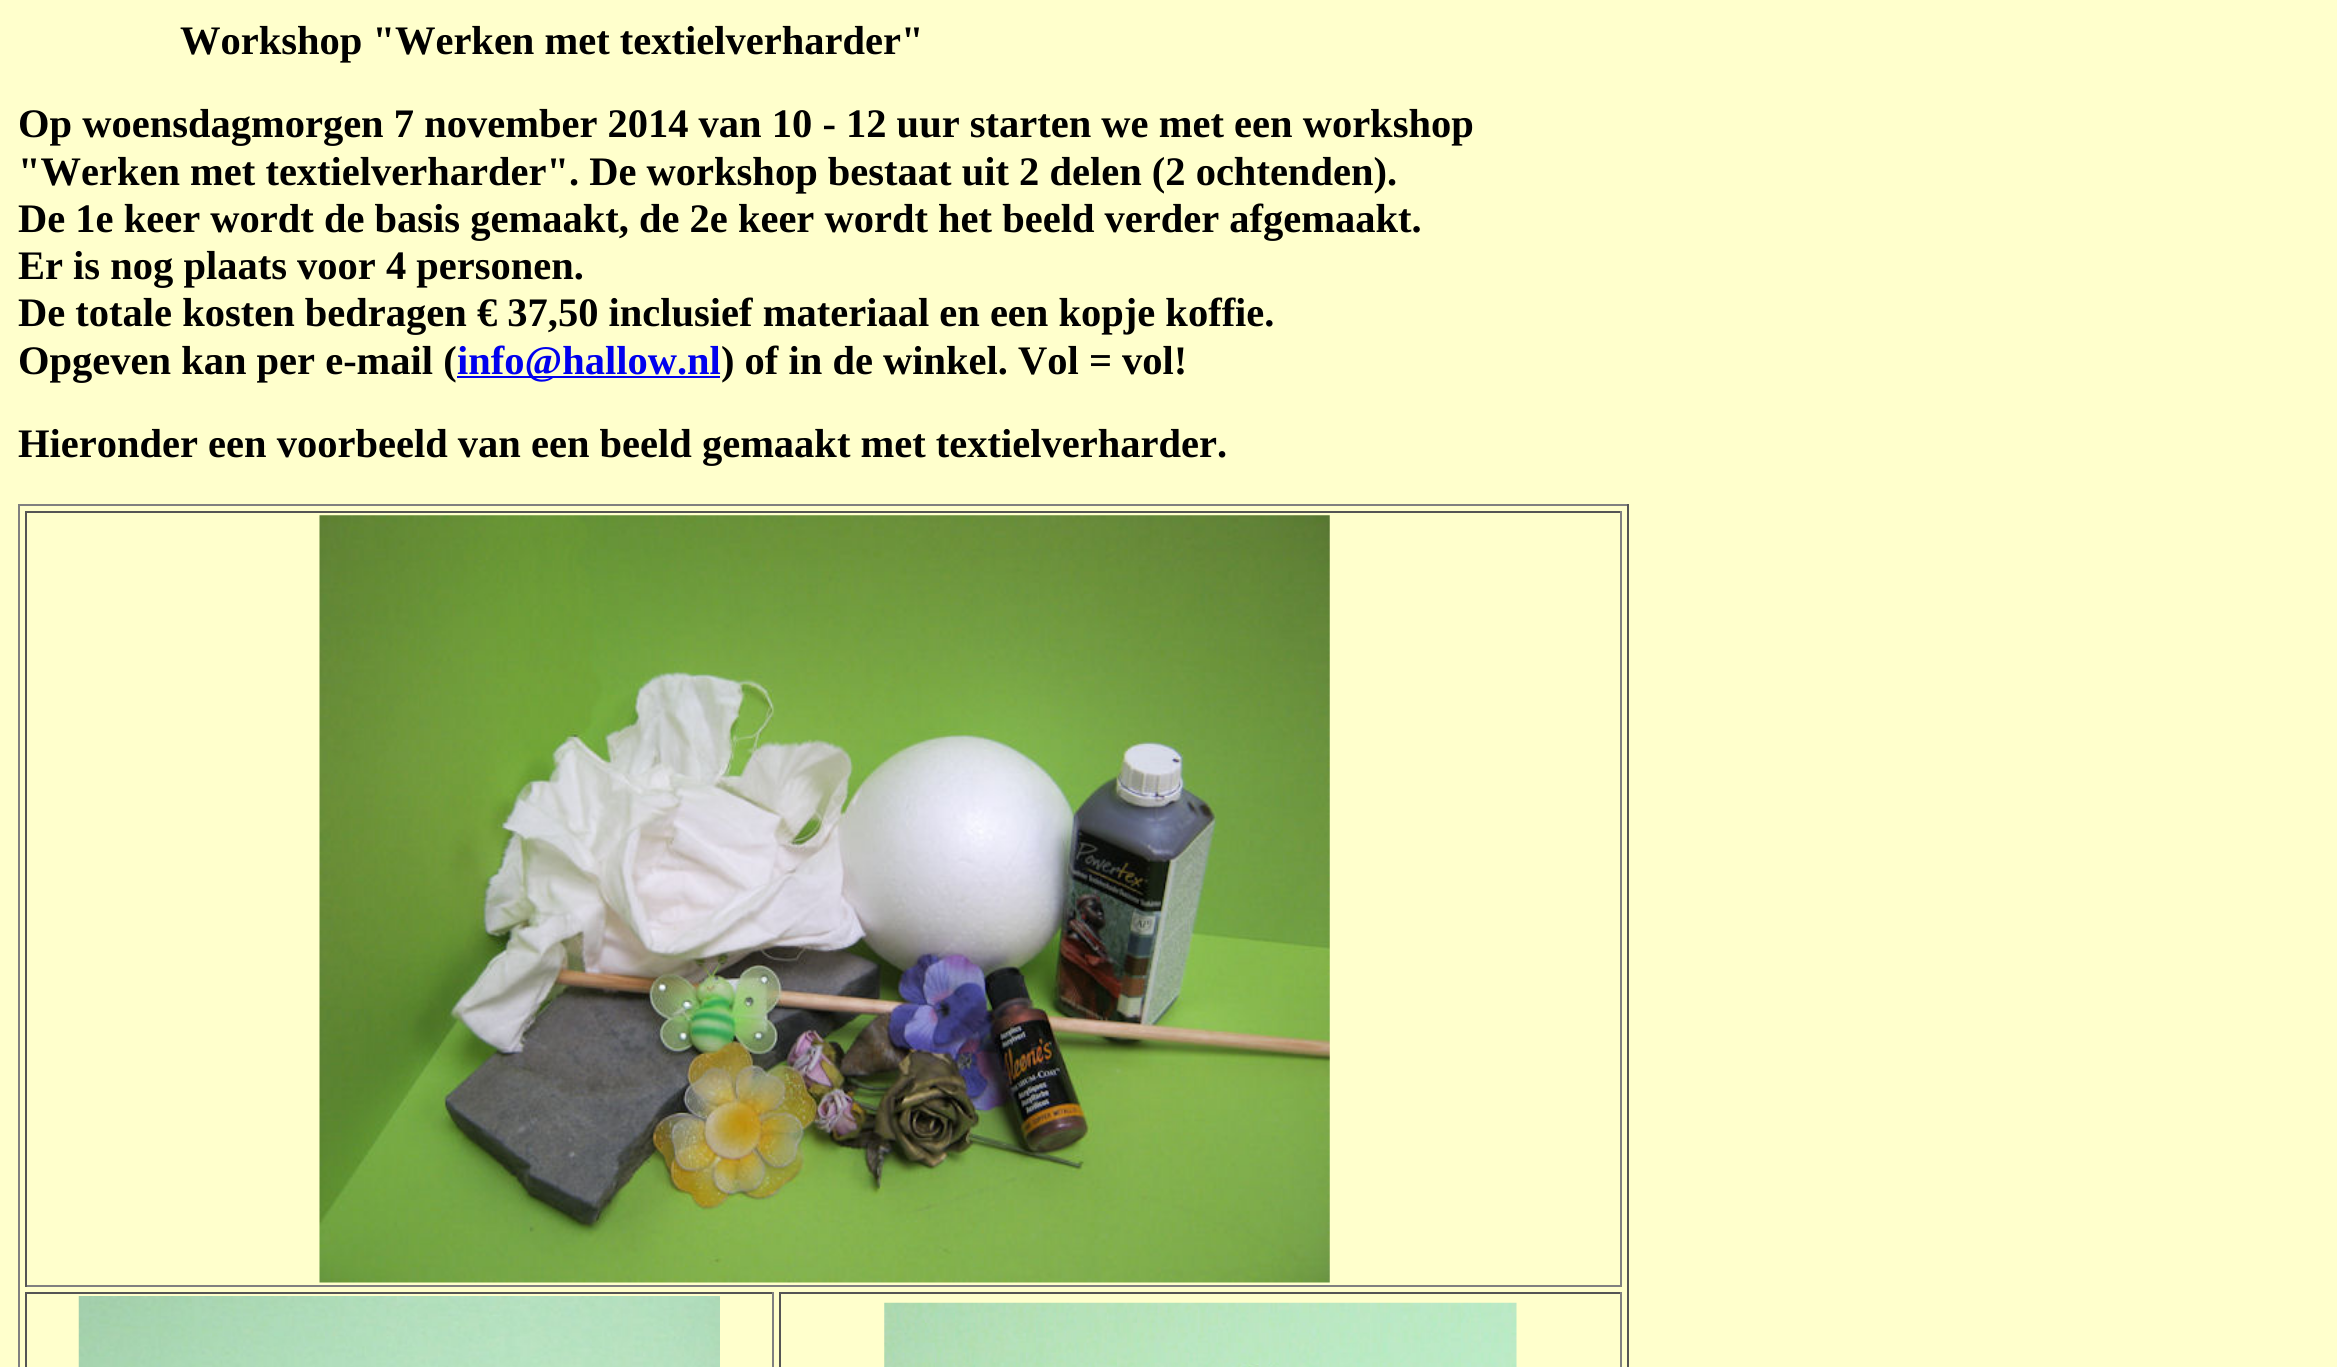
#include <cairo.h>
#include <math.h>
#include <stddef.h>


static void set_color(cairo_t *cr, unsigned color) {
    cairo_set_source_rgb(cr, (color >> 16) / 255.0, (color >> 8 & 255) / 255.0, (color & 255) / 255.0);
}

static void draw_text(cairo_t *cr, double x, double y, const char *s, const char *family, double size, int italic, int bold, unsigned color) {
    cairo_select_font_face(cr, family, italic ? CAIRO_FONT_SLANT_ITALIC : CAIRO_FONT_SLANT_NORMAL,
        bold ? CAIRO_FONT_WEIGHT_BOLD : CAIRO_FONT_WEIGHT_NORMAL);
    cairo_set_font_size(cr, size);
    set_color(cr, color);
    cairo_move_to(cr, x, y);
    cairo_show_text(cr, s);
}

static void fill_rect(cairo_t *cr, double x, double y, double w, double h, unsigned color) {
    set_color(cr, color);
    cairo_rectangle(cr, x, y, w, h);
    cairo_fill(cr);
}

static void draw_image(cairo_t *cr, const char *path, double x, double y, double w, double h) {
    cairo_surface_t *image = cairo_image_surface_create_from_png(path);
    cairo_save(cr);
    cairo_set_source_surface(cr, image, x, y);
    cairo_rectangle(cr, x, y, w, h);
    cairo_fill(cr);
    cairo_restore(cr);
    cairo_surface_destroy(image);
}

int main(void) {
    cairo_surface_t *surface = cairo_image_surface_create(CAIRO_FORMAT_RGB24, 2337, 1367);
    cairo_t *cr = cairo_create(surface);
    cairo_font_options_t *options = cairo_font_options_create();
    cairo_font_options_set_hint_metrics(options, CAIRO_HINT_METRICS_OFF);
    cairo_font_options_set_hint_style(options, CAIRO_HINT_STYLE_NONE);
    cairo_set_font_options(cr, options);
    cairo_set_miter_limit(cr, 4);
    set_color(cr, 0xFFFFCC);
    cairo_paint(cr);
    draw_text(cr, 180, 54, "Workshop \"Werken met textielverharder\"", "Liberation Serif", 40.5, 0, 1, 0x000000);
    draw_text(cr, 18, 137, "Op woensdagmorgen 7 november 2014 van 10 - 12 uur starten we met een workshop", "Liberation Serif", 40.5, 0, 1, 0x000000);
    draw_text(cr, 18, 185, "\"Werken met textielverharder\". De workshop bestaat uit 2 delen (2 ochtenden).", "Liberation Serif", 40.5, 0, 1, 0x000000);
    draw_text(cr, 18, 232, "De 1e keer wordt de basis gemaakt, de 2e keer wordt het beeld verder afgemaakt.", "Liberation Serif", 40.5, 0, 1, 0x000000);
    draw_text(cr, 18, 279, "Er is nog plaats voor 4 personen.", "Liberation Serif", 40.5, 0, 1, 0x000000);
    draw_text(cr, 18, 326, "De totale kosten bedragen € 37,50 inclusief materiaal en een kopje koffie.", "Liberation Serif", 40.5, 0, 1, 0x000000);
    draw_text(cr, 18, 374, "Opgeven kan per e-mail (", "Liberation Serif", 40.5, 0, 1, 0x000000);
    fill_rect(cr, 457, 376, 263, 2, 0x0000EE);
    draw_text(cr, 457, 374, "info@hallow.nl", "Liberation Serif", 40.5, 0, 1, 0x0000EE);
    draw_text(cr, 721, 374, ") of in de winkel. Vol = vol!", "Liberation Serif", 40.5, 0, 1, 0x000000);
    draw_text(cr, 18, 457, "Hieronder een voorbeeld van een beeld gemaakt met textielverharder.", "Liberation Serif", 40.5, 0, 1, 0x000000);
    fill_rect(cr, 18, 504, 1611, 2, 0x808080);
    fill_rect(cr, 1627, 504, 2, 863, 0x555555);
    fill_rect(cr, 18, 504, 2, 863, 0x808080);
    fill_rect(cr, 25, 511, 1597, 2, 0x555555);
    fill_rect(cr, 1620, 511, 2, 776, 0x808080);
    fill_rect(cr, 25, 1285, 1597, 2, 0x808080);
    fill_rect(cr, 25, 511, 2, 776, 0x555555);
    draw_image(cr, "assets/img1.png", 319, 515, 1011, 768);
    fill_rect(cr, 25, 1292, 749, 2, 0x555555);
    fill_rect(cr, 772, 1292, 2, 75, 0x808080);
    fill_rect(cr, 25, 1292, 2, 75, 0x555555);
    draw_image(cr, "assets/img2.png", 78, 1296, 642, 71);
    fill_rect(cr, 779, 1292, 843, 2, 0x555555);
    fill_rect(cr, 1620, 1292, 2, 75, 0x808080);
    fill_rect(cr, 779, 1292, 2, 75, 0x555555);
    draw_image(cr, "assets/img3.png", 884, 1302, 633, 65);
    cairo_surface_write_to_png(surface, "output.png");
    cairo_font_options_destroy(options);
    cairo_destroy(cr);
    cairo_surface_destroy(surface);
    return 0;
}
